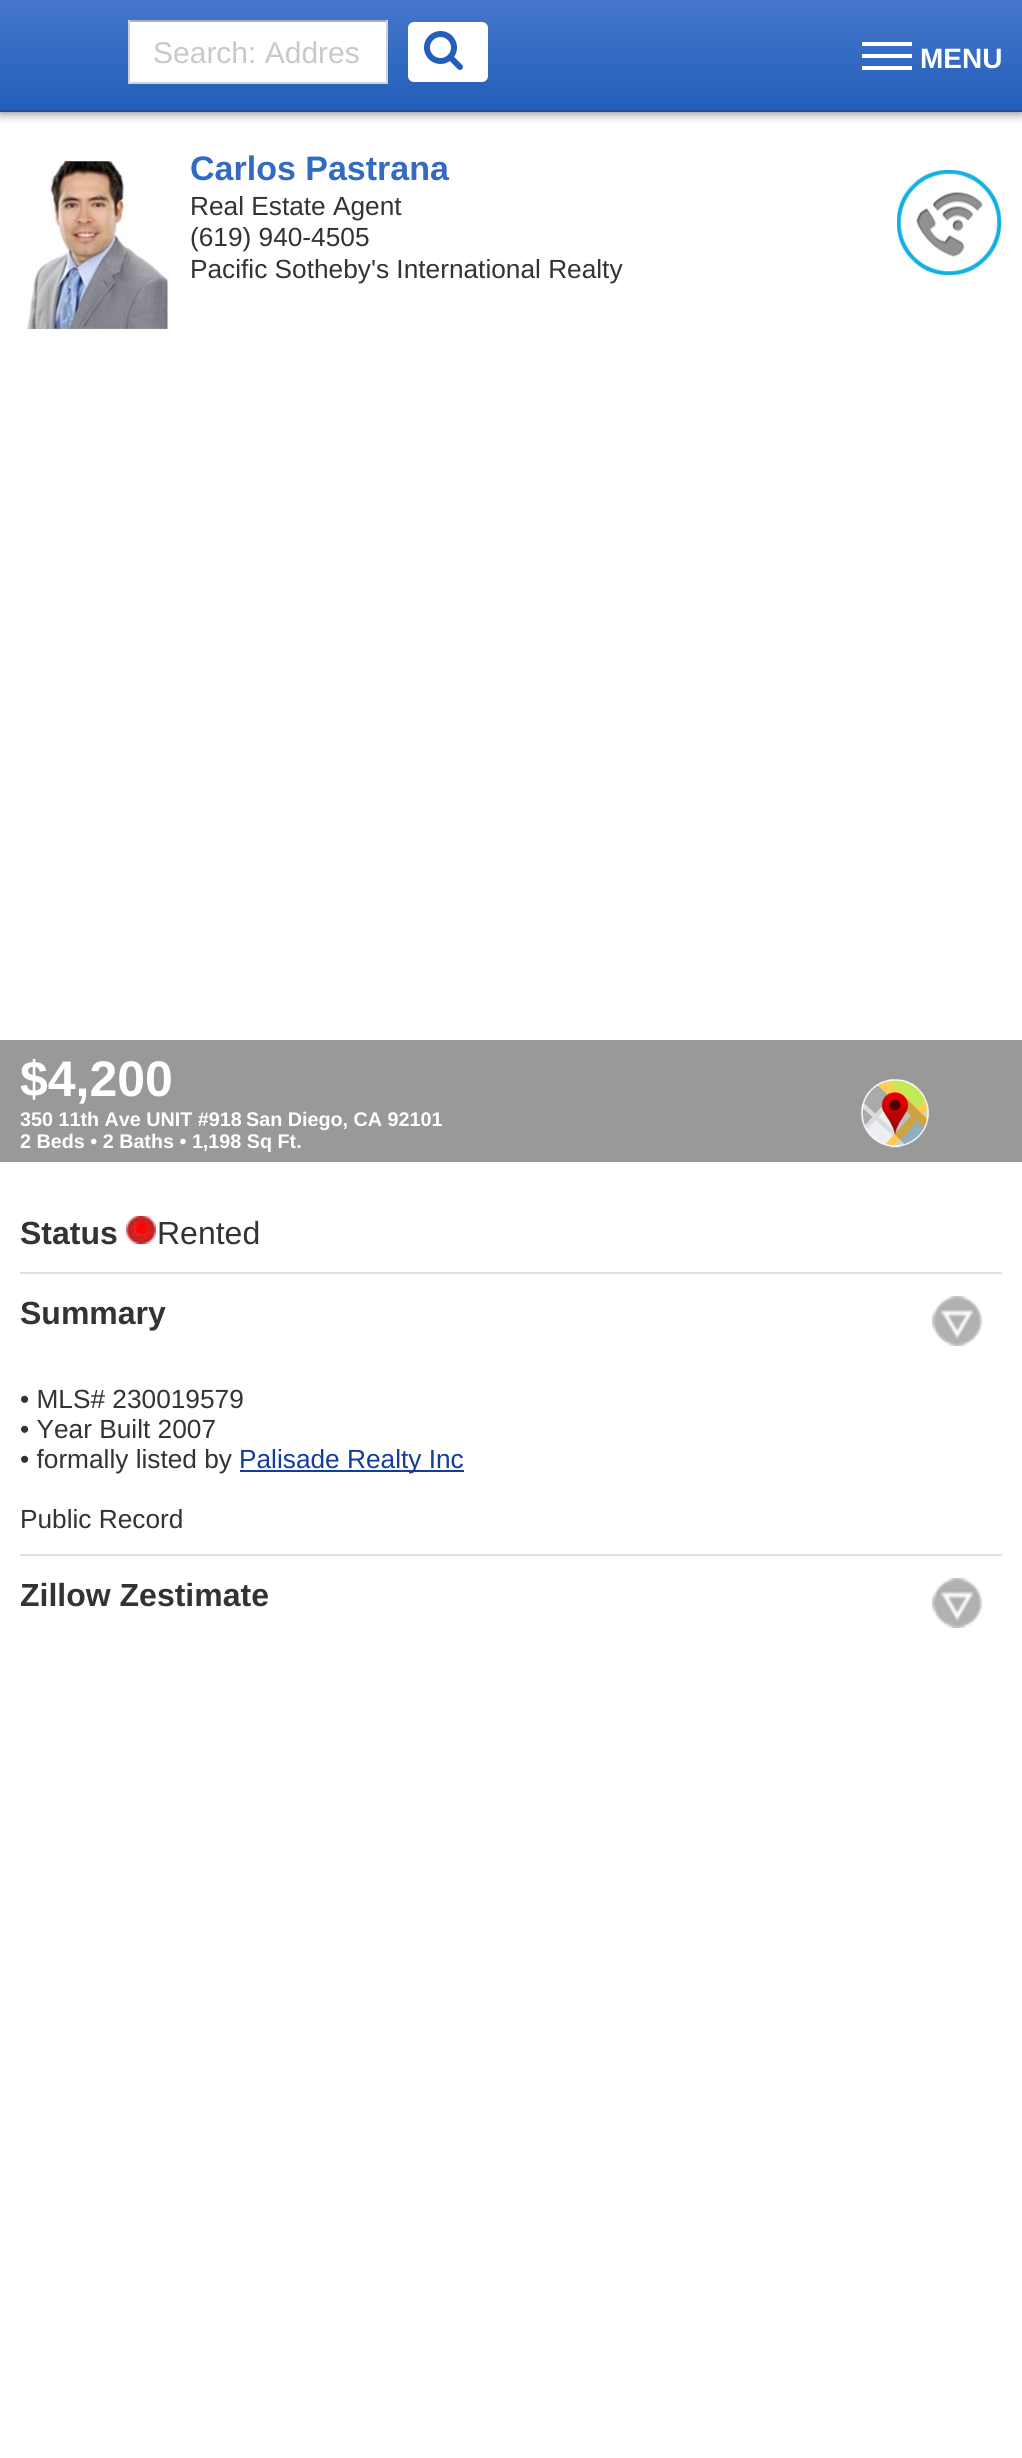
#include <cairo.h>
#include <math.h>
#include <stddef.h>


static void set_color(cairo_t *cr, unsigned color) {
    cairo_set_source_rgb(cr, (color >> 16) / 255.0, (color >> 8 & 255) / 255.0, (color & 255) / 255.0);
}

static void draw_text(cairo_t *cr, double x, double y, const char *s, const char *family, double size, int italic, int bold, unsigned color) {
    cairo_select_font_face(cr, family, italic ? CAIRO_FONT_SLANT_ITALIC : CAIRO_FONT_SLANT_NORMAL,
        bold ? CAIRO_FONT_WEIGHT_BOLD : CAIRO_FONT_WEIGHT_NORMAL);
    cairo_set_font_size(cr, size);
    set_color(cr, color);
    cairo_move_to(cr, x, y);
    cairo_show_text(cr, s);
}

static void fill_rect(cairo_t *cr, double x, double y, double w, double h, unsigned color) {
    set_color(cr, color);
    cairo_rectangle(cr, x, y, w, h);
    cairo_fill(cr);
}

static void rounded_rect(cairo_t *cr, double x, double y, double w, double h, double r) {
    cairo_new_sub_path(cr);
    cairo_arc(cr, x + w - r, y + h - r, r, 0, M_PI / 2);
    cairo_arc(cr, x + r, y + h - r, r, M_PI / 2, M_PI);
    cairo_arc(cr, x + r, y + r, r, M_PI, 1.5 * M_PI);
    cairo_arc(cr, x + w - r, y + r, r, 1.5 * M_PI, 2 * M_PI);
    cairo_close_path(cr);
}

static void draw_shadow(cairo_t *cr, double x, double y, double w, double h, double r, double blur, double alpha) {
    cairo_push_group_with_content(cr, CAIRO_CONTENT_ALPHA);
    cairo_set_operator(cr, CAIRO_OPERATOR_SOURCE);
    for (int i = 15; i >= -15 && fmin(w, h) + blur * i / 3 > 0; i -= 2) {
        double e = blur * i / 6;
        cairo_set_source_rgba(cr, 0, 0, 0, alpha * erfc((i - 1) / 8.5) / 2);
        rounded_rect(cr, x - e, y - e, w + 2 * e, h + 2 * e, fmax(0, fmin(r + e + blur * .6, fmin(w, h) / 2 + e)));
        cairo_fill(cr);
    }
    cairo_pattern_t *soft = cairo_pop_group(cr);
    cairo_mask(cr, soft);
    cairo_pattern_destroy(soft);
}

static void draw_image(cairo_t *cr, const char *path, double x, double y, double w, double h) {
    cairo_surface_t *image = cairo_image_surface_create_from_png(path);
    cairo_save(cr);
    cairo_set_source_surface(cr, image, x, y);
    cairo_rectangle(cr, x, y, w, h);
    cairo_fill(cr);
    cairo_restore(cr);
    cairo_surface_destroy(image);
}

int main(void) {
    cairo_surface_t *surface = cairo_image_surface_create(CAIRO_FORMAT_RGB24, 1022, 2458);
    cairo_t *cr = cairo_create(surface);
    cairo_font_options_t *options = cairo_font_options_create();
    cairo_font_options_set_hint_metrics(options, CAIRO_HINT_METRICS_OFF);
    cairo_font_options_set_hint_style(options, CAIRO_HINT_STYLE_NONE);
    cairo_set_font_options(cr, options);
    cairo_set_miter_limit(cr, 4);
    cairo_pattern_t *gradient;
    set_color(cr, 0xFFFFFF);
    cairo_paint(cr);
    set_color(cr, 0x000000);
    draw_shadow(cr, 0, 0, 1022, 112, 0, 6, 0.6);
    gradient = cairo_pattern_create_linear(511, 0, 511, 110);
    cairo_pattern_add_color_stop_rgba(gradient, 0, 0.271, 0.467, 0.796, 1);
    cairo_pattern_add_color_stop_rgba(gradient, 1, 0.137, 0.369, 0.729, 1);
    cairo_set_source(cr, gradient);
    cairo_pattern_destroy(gradient);
    cairo_rectangle(cr, 0, 0, 1022, 110);
    cairo_fill(cr);
    fill_rect(cr, 0, 110, 1022, 2, 0x264D8D);
    fill_rect(cr, 130, 22, 256, 60, 0xFFFFFF);
    fill_rect(cr, 128, 20, 260, 2, 0xAEAEAE);
    fill_rect(cr, 386, 20, 2, 64, 0xD2D2D2);
    fill_rect(cr, 128, 82, 260, 2, 0xD2D2D2);
    fill_rect(cr, 128, 20, 2, 64, 0xD2D2D2);
    draw_text(cr, 153, 63, "Search: Addres", "Liberation Sans", 30, 0, 0, 0xC9C9C9);
    set_color(cr, 0xFFFFFF);
    rounded_rect(cr, 408, 22, 80, 60, 6);
    cairo_fill(cr);
    draw_image(cr, "assets/img1.png", 424, 31, 39, 39);
    fill_rect(cr, 862, 42, 50, 4, 0xFFFFFF);
    fill_rect(cr, 862, 54, 50, 4, 0xFFFFFF);
    fill_rect(cr, 862, 66, 50, 4, 0xFFFFFF);
    draw_text(cr, 920, 68, "MENU", "Liberation Sans", 28, 0, 1, 0xFFFFFF);
    draw_image(cr, "assets/img2.png", 26, 161, 142, 169);
    draw_text(cr, 190, 180, "Carlos Pastrana", "Liberation Sans", 34, 0, 1, 0x336AC2);
    draw_image(cr, "assets/img3.png", 896, 170, 106, 106);
    draw_text(cr, 190, 215, "Real Estate Agent", "Liberation Sans", 26.25, 0, 0, 0x333333);
    draw_text(cr, 190, 246, "(619) 940-4505", "Liberation Sans", 26.25, 0, 0, 0x333333);
    draw_text(cr, 190, 278, "Pacific Sotheby's International Realty", "Liberation Sans", 26.25, 0, 0, 0x333333);
    fill_rect(cr, 0, 1040, 1022, 122, 0x999999);
    draw_text(cr, 20, 1096, "$4,200", "Liberation Sans", 50, 0, 1, 0xFFFFFF);
    draw_text(cr, 20, 1126, "350 11th Ave UNIT #918", "Liberation Sans", 19.75, 0, 1, 0xFFFFFF);
    draw_text(cr, 246, 1126, "San Diego, CA 92101", "Liberation Sans", 19.75, 0, 1, 0xFFFFFF);
    draw_text(cr, 20, 1148, "2 Beds • 2 Baths • 1,198 Sq Ft.", "Liberation Sans", 19.75, 0, 1, 0xFFFFFF);
    draw_image(cr, "assets/img4.png", 860, 1079, 70, 69);
    draw_text(cr, 20, 1244, "Status", "Liberation Sans", 32, 0, 1, 0x333333);
    draw_image(cr, "assets/img5.png", 126, 1216, 30, 28);
    draw_text(cr, 157, 1244, "Rented", "Liberation Sans", 32, 0, 0, 0x333333);
    fill_rect(cr, 20, 1272, 982, 2, 0xE2E2E2);
    draw_text(cr, 20, 1324, "Summary", "Liberation Sans", 32, 0, 1, 0x333333);
    draw_image(cr, "assets/img6.png", 932, 1296, 50, 50);
    draw_text(cr, 20, 1408, "• MLS# 230019579", "Liberation Sans", 26.25, 0, 0, 0x333333);
    draw_text(cr, 20, 1438, "• Year Built 2007", "Liberation Sans", 26.25, 0, 0, 0x333333);
    draw_text(cr, 20, 1468, "• formally listed by", "Liberation Sans", 26.25, 0, 0, 0x333333);
    fill_rect(cr, 240, 1470, 224, 2, 0x143C9B);
    draw_text(cr, 239, 1468, "Palisade Realty Inc", "Liberation Sans", 26.25, 0, 0, 0x143C9B);
    draw_text(cr, 20, 1528, "Public Record", "Liberation Sans", 26.25, 0, 0, 0x333333);
    fill_rect(cr, 20, 1554, 982, 2, 0xE2E2E2);
    draw_text(cr, 20, 1606, "Zillow Zestimate", "Liberation Sans", 32, 0, 1, 0x333333);
    draw_image(cr, "assets/img6.png", 932, 1578, 50, 50);
    cairo_surface_write_to_png(surface, "output.png");
    cairo_font_options_destroy(options);
    cairo_destroy(cr);
    cairo_surface_destroy(surface);
    return 0;
}
